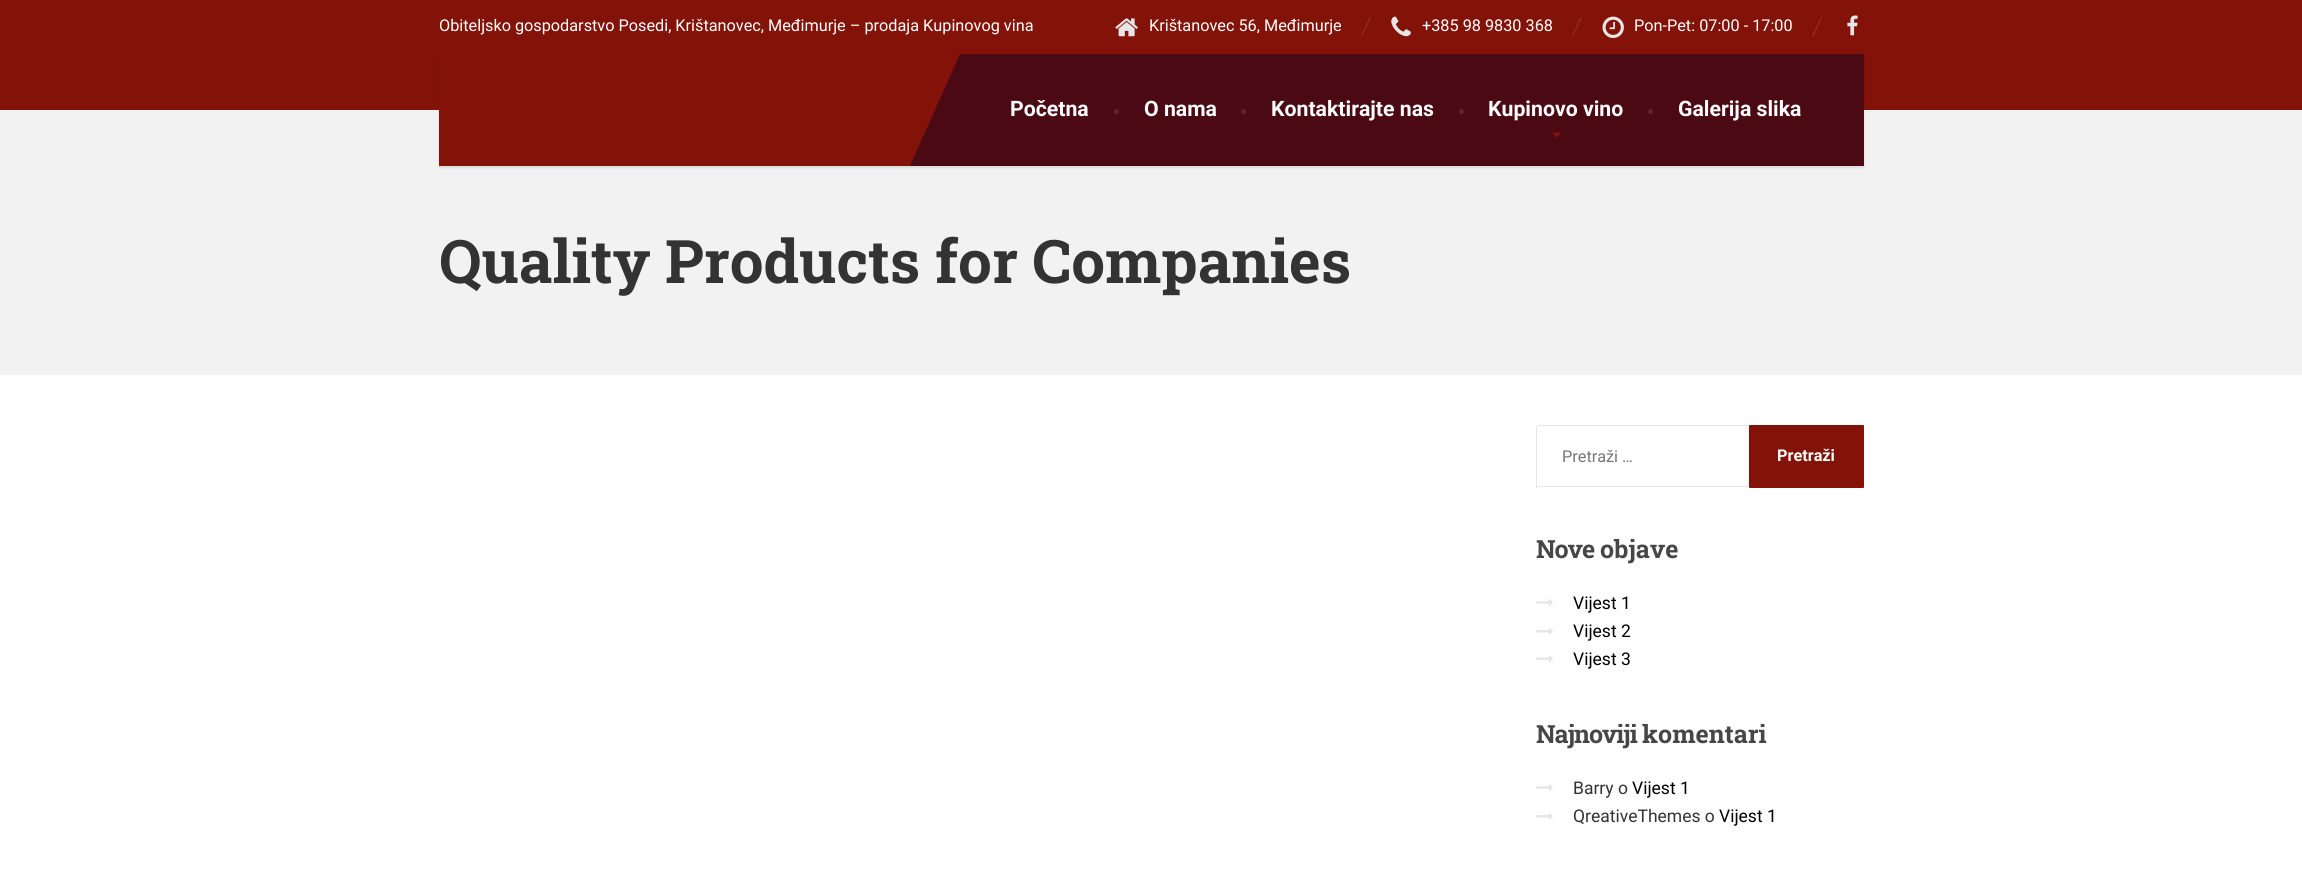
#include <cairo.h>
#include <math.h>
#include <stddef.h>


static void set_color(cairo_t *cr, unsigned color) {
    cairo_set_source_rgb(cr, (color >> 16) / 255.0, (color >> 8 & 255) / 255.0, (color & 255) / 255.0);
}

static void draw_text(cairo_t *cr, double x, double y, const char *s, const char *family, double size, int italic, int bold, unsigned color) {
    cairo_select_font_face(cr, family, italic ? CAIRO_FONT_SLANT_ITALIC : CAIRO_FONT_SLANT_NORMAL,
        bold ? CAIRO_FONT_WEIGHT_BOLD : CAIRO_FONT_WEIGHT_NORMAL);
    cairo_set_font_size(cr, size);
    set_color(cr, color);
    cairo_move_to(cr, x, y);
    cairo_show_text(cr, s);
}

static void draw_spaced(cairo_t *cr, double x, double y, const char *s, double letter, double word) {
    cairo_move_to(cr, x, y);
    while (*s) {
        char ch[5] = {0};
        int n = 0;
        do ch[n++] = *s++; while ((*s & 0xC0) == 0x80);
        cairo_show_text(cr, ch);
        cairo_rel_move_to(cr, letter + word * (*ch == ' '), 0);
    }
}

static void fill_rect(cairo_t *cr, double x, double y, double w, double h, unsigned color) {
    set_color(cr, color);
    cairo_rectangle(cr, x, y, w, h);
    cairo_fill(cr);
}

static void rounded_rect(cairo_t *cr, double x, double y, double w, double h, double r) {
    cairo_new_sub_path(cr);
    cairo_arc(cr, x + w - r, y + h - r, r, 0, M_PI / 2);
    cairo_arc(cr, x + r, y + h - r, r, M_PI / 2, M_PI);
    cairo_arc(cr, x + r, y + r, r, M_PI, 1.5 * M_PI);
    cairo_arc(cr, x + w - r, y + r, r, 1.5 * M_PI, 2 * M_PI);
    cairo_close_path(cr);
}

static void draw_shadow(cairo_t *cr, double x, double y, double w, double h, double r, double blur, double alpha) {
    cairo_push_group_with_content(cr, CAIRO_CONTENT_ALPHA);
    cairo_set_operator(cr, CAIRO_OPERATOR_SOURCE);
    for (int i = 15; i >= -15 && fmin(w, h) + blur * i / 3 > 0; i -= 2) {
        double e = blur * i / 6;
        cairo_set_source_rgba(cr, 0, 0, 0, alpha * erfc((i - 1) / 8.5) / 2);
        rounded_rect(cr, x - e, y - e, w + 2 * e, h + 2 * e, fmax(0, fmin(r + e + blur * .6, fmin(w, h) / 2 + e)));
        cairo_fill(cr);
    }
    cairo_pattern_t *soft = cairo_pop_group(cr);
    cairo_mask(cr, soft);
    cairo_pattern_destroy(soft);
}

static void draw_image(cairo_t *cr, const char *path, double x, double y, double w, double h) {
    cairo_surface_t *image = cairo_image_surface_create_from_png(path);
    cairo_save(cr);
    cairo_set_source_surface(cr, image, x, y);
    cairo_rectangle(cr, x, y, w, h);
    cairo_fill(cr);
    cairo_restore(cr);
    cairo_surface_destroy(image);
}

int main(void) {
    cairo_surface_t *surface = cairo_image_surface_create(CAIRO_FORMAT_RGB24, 2302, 877);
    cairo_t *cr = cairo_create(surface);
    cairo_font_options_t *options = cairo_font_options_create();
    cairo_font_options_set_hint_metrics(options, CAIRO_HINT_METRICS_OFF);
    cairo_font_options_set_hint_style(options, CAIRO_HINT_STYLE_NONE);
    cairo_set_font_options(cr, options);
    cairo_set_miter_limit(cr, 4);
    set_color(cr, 0xFFFFFF);
    cairo_paint(cr);
    fill_rect(cr, 0, 0, 2302, 110, 0x831309);
    draw_text(cr, 439, 31, "Obiteljsko gospodarstvo Posedi, Krištanovec, Međimurje – prodaja Kupinovog vina", "Roboto", 16.25, 0, 0, 0xFFFFFF);
    draw_image(cr, "assets/img1.png", 1115, 18, 23, 19);
    draw_text(cr, 1149, 31, "Krištanovec 56, Međimurje", "Roboto", 16.25, 0, 0, 0xFFFFFF);
    set_color(cr, 0x922F27);
    cairo_new_path(cr);
    cairo_move_to(cr, 1369.5, 17.5);
    cairo_line_to(cr, 1371, 17.5);
    cairo_line_to(cr, 1362, 36);
    cairo_line_to(cr, 1361, 36);
    cairo_close_path(cr);
    cairo_fill(cr);
    draw_image(cr, "assets/img2.png", 1391, 16, 20, 21);
    draw_text(cr, 1422, 31, "+385 98 9830 368", "Roboto", 16.25, 0, 0, 0xFFFFFF);
    set_color(cr, 0x922F27);
    cairo_new_path(cr);
    cairo_move_to(cr, 1580.5, 17.5);
    cairo_line_to(cr, 1582, 17.5);
    cairo_line_to(cr, 1573, 36);
    cairo_line_to(cr, 1572, 36);
    cairo_close_path(cr);
    cairo_fill(cr);
    draw_image(cr, "assets/img3.png", 1602, 16, 22, 22);
    draw_text(cr, 1634, 31, "Pon-Pet: 07:00 - 17:00", "Roboto", 16.25, 0, 0, 0xFFFFFF);
    set_color(cr, 0x922F27);
    cairo_new_path(cr);
    cairo_move_to(cr, 1821, 17.5);
    cairo_line_to(cr, 1822, 17.5);
    cairo_line_to(cr, 1813.5, 36);
    cairo_line_to(cr, 1812, 36);
    cairo_close_path(cr);
    cairo_fill(cr);
    draw_image(cr, "assets/img4.png", 1847, 15, 11, 21);
    fill_rect(cr, 0, 110, 2302, 265, 0xF2F2F2);
    set_color(cr, 0x000000);
    draw_shadow(cr, 439, 55, 1425, 113, 0, 1, 0.1);
    fill_rect(cr, 439, 54, 471, 112, 0x831309);
    fill_rect(cr, 910, 54, 954, 112, 0x4B0913);
    set_color(cr, 0x831309);
    cairo_new_path(cr);
    cairo_move_to(cr, 910, 166);
    cairo_line_to(cr, 910, 54);
    cairo_line_to(cr, 960, 54);
    cairo_close_path(cr);
    cairo_fill(cr);
    draw_text(cr, 1010, 116, "Početna", "Roboto", 21.25, 0, 1, 0xFFFFFF);
    set_color(cr, 0x64222C);
    cairo_new_path(cr);
    cairo_arc(cr, 1116.5, 111.5, 2.5, 0, 2 * M_PI);
    cairo_fill(cr);
    draw_text(cr, 1144, 116, "O nama", "Roboto", 21.25, 0, 1, 0xFFFFFF);
    set_color(cr, 0x64222C);
    cairo_new_path(cr);
    cairo_arc(cr, 1243.5, 111.5, 2.5, 0, 2 * M_PI);
    cairo_fill(cr);
    draw_text(cr, 1271, 116, "Kontaktirajte nas", "Roboto", 21.25, 0, 1, 0xFFFFFF);
    set_color(cr, 0x64222C);
    cairo_new_path(cr);
    cairo_arc(cr, 1461.5, 111.5, 2.5, 0, 2 * M_PI);
    cairo_fill(cr);
    draw_text(cr, 1488, 116, "Kupinovo vino", "Roboto", 21.25, 0, 1, 0xFFFFFF);
    draw_image(cr, "assets/img5.png", 1552, 132, 9, 6);
    set_color(cr, 0x64222C);
    cairo_arc(cr, 1650.5, 111.5, 2.5, 0, 2 * M_PI);
    cairo_fill(cr);
    draw_text(cr, 1678, 116, "Galerija slika", "Roboto", 21.25, 0, 1, 0xFFFFFF);
    draw_text(cr, 439, 283, "Quality Products for Companies", "Roboto Slab", 60, 0, 1, 0x333333);
    fill_rect(cr, 1538, 425, 211, 1, 0xE6E6E6);
    fill_rect(cr, 1538, 486, 211, 1, 0xE6E6E6);
    fill_rect(cr, 1536, 426, 1, 62, 0xE6E6E6);
    draw_text(cr, 1562, 462, "Pretraži …", "Roboto", 16.25, 0, 0, 0x757575);
    set_color(cr, 0x831309);
    rounded_rect(cr, 1749, 425, 115, 63, 1);
    cairo_fill(cr);
    draw_text(cr, 1777, 461, "Pretraži", "Roboto", 16.25, 0, 1, 0xFFFFFF);
    cairo_select_font_face(cr, "Roboto Slab", CAIRO_FONT_SLANT_NORMAL, CAIRO_FONT_WEIGHT_BOLD);
    cairo_set_font_size(cr, 25);
    set_color(cr, 0x464646);
    draw_spaced(cr, 1536, 558, "Nove", -1, 0);
    draw_text(cr, 1600, 558, "objave", "Roboto Slab", 25, 0, 1, 0x464646);
    draw_image(cr, "assets/img6.png", 1536, 599, 17, 7);
    draw_text(cr, 1573, 609, "Vijest 1", "Roboto", 17.5, 0, 0, 0x000000);
    draw_image(cr, "assets/img7.png", 1536, 627, 17, 8);
    draw_text(cr, 1573, 637, "Vijest 2", "Roboto", 17.5, 0, 0, 0x000000);
    draw_image(cr, "assets/img8.png", 1536, 655, 17, 8);
    draw_text(cr, 1573, 665, "Vijest 3", "Roboto", 17.5, 0, 0, 0x000000);
    cairo_select_font_face(cr, "Roboto Slab", CAIRO_FONT_SLANT_NORMAL, CAIRO_FONT_WEIGHT_BOLD);
    cairo_set_font_size(cr, 25);
    set_color(cr, 0x464646);
    draw_spaced(cr, 1536, 743, "Najnoviji", -1, 0);
    draw_text(cr, 1642, 743, "komentari", "Roboto Slab", 25, 0, 1, 0x464646);
    draw_image(cr, "assets/img6.png", 1536, 784, 17, 7);
    draw_text(cr, 1573, 794, "Barry o", "Roboto", 17.5, 0, 0, 0x333333);
    draw_text(cr, 1632, 794, "Vijest 1", "Roboto", 17.5, 0, 0, 0x000000);
    draw_image(cr, "assets/img7.png", 1536, 812, 17, 8);
    draw_text(cr, 1573, 822, "QreativeThemes o", "Roboto", 17.5, 0, 0, 0x333333);
    draw_text(cr, 1719, 822, "Vijest 1", "Roboto", 17.5, 0, 0, 0x000000);
    cairo_surface_write_to_png(surface, "output.png");
    cairo_font_options_destroy(options);
    cairo_destroy(cr);
    cairo_surface_destroy(surface);
    return 0;
}
